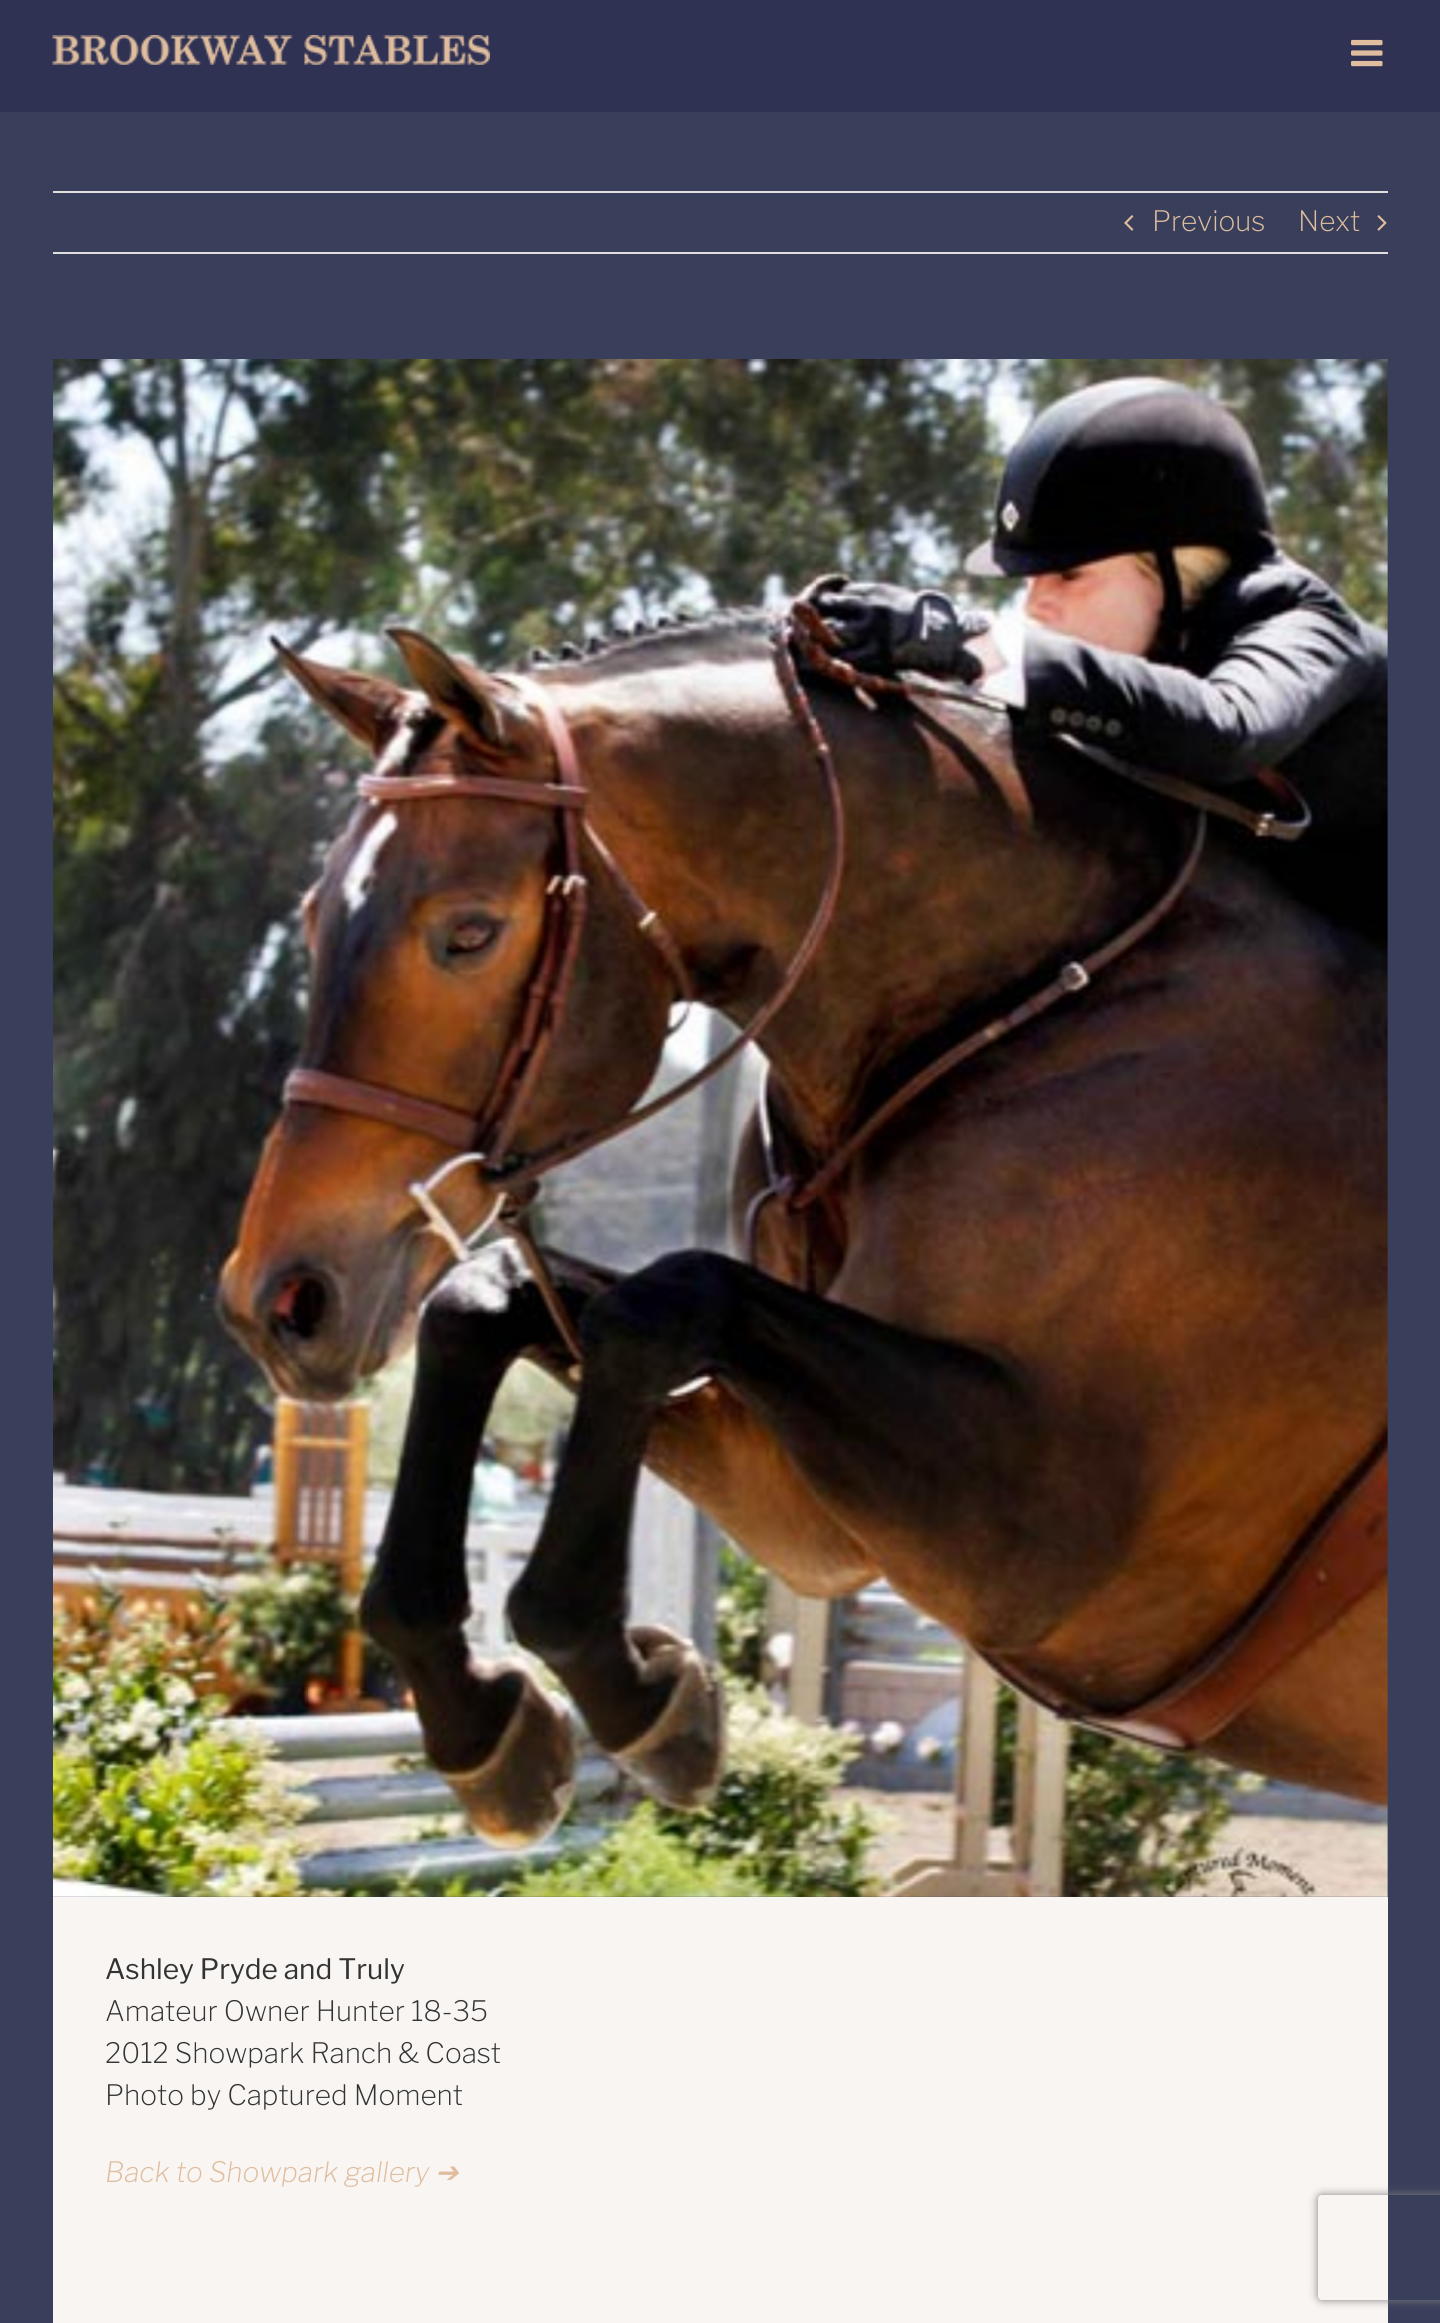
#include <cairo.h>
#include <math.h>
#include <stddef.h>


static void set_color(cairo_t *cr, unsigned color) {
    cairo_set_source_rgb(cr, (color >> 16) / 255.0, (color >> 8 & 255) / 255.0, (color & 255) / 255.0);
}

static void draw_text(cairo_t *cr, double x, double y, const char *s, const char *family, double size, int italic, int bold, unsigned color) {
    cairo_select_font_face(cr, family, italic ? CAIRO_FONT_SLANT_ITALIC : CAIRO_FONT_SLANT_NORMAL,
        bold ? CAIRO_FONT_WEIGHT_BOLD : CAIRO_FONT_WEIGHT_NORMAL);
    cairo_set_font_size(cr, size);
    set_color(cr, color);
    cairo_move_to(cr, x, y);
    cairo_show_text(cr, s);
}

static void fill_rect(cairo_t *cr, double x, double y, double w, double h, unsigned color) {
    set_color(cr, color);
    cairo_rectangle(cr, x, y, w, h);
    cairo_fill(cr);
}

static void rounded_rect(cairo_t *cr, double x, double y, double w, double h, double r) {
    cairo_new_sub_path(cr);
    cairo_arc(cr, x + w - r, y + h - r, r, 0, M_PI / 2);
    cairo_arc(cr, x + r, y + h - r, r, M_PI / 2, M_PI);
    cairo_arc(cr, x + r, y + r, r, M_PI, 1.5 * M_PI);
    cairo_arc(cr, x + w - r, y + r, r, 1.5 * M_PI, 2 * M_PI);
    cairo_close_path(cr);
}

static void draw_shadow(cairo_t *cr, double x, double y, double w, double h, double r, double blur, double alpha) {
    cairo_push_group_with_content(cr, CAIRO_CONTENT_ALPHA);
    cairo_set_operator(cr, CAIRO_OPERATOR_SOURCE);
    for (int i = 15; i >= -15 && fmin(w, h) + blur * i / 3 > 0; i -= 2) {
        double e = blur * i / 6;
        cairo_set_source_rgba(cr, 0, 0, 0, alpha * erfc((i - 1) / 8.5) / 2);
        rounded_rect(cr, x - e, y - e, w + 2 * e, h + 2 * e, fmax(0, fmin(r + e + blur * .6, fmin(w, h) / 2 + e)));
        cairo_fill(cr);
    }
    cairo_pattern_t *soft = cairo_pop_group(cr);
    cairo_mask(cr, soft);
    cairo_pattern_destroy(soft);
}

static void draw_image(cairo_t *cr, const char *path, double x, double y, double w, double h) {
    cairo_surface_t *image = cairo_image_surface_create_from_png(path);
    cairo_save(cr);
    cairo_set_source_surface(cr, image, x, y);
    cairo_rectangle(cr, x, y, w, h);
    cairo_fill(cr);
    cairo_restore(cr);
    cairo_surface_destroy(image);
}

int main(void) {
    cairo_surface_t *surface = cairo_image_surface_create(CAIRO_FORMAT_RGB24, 1440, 2323);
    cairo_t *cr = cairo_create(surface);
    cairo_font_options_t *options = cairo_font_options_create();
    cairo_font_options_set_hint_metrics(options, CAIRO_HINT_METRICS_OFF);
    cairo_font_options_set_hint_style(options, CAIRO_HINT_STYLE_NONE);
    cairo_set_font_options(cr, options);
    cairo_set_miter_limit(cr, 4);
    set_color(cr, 0x393F5B);
    cairo_paint(cr);
    fill_rect(cr, 0, 0, 1440, 112, 0x303254);
    draw_image(cr, "assets/img1.png", 52, 35, 438, 30);
    draw_image(cr, "assets/img2.png", 1351, 39, 32, 28);
    fill_rect(cr, 53, 191, 1335, 2, 0xE0DEDE);
    fill_rect(cr, 53, 252, 1335, 2, 0xE0DEDE);
    draw_image(cr, "assets/img3.png", 1124, 215, 10, 16);
    draw_text(cr, 1152, 231, "Previous", "Libre Franklin ExtraLight", 28, 0, 0, 0xDFBD9E);
    draw_text(cr, 1298, 231, "Next", "Libre Franklin ExtraLight", 28, 0, 0, 0xDFBD9E);
    draw_image(cr, "assets/img4.png", 1377, 215, 10, 16);
    draw_image(cr, "assets/img5.png", 53, 359, 1335, 1538);
    fill_rect(cr, 53, 1897, 1335, 426, 0xF9F5F2);
    draw_text(cr, 105, 1979, "Ashley Pryde and Truly", "Libre Franklin", 28, 0, 0, 0x333333);
    draw_text(cr, 105, 2021, "Amateur Owner Hunter 18-35", "Libre Franklin ExtraLight", 28, 0, 0, 0x333333);
    draw_text(cr, 105, 2063, "2012 Showpark Ranch & Coast", "Libre Franklin ExtraLight", 28, 0, 0, 0x333333);
    draw_text(cr, 105, 2105, "Photo by Captured Moment", "Libre Franklin ExtraLight", 28, 0, 0, 0x333333);
    draw_text(cr, 105, 2182, "Back to Showpark gallery", "Libre Franklin ExtraLight", 28, 1, 0, 0xDFBD9E);
    draw_text(cr, 435, 2182, "➔", "DejaVu Sans", 28, 1, 0, 0xDFBD9E);
    cairo_save(cr);
    cairo_set_fill_rule(cr, CAIRO_FILL_RULE_EVEN_ODD);
    cairo_new_path(cr);
    cairo_move_to(cr, 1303, 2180);
    cairo_line_to(cr, 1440, 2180);
    cairo_line_to(cr, 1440, 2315);
    cairo_line_to(cr, 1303, 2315);
    cairo_close_path(cr);
    cairo_move_to(cr, 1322, 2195);
    cairo_line_to(cr, 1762, 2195);
    cairo_curve_to(cr, 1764, 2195, 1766, 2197, 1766, 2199);
    cairo_line_to(cr, 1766, 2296);
    cairo_curve_to(cr, 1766, 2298, 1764, 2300, 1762, 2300);
    cairo_line_to(cr, 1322, 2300);
    cairo_curve_to(cr, 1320, 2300, 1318, 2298, 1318, 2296);
    cairo_line_to(cr, 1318, 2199);
    cairo_curve_to(cr, 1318, 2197, 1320, 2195, 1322, 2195);
    cairo_close_path(cr);
    cairo_clip(cr);
    set_color(cr, 0x808080);
    draw_shadow(cr, 1318, 2195, 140, 105, 4, 4.5, 1);
    cairo_restore(cr);
    cairo_surface_write_to_png(surface, "output.png");
    cairo_font_options_destroy(options);
    cairo_destroy(cr);
    cairo_surface_destroy(surface);
    return 0;
}
